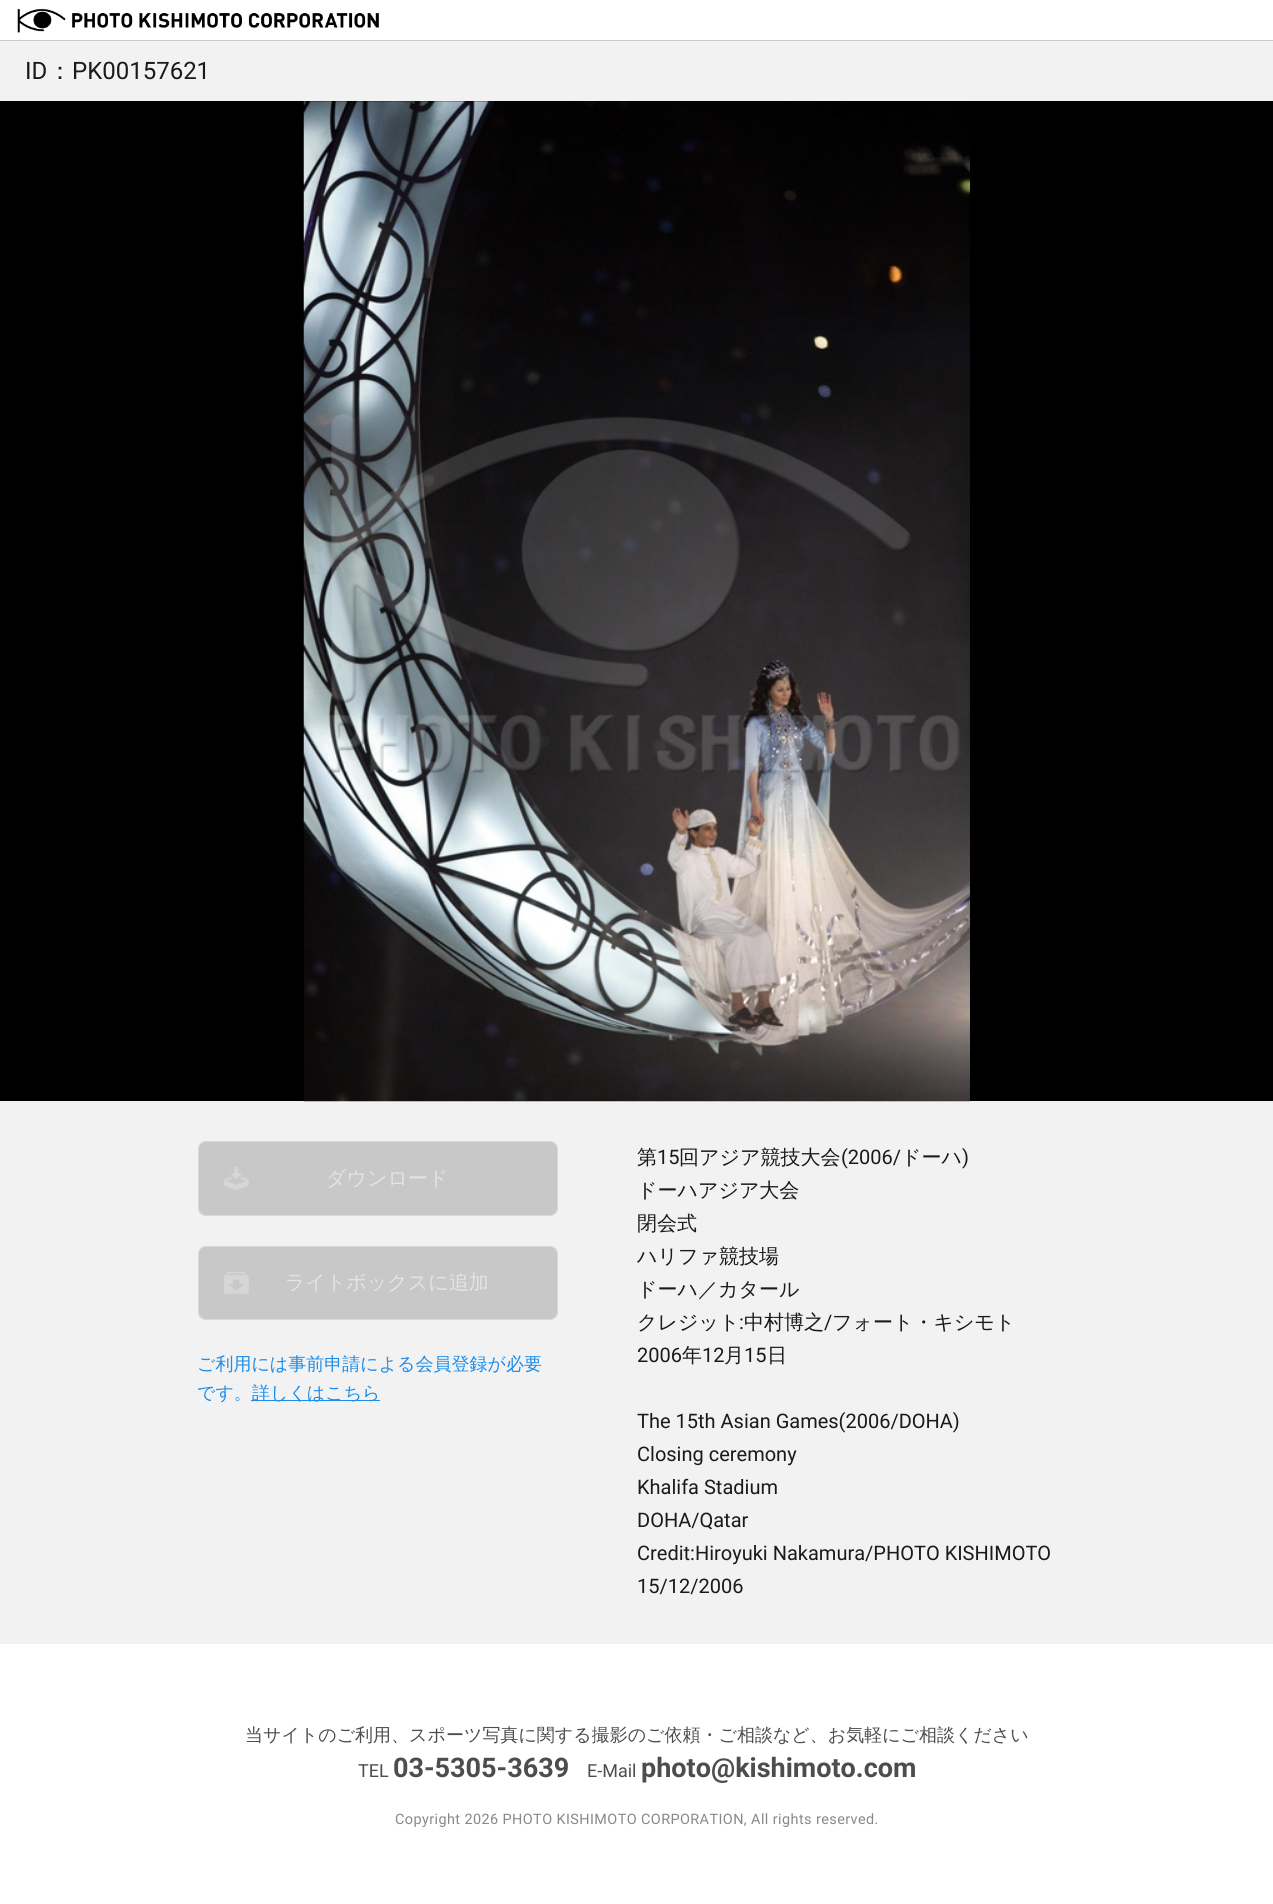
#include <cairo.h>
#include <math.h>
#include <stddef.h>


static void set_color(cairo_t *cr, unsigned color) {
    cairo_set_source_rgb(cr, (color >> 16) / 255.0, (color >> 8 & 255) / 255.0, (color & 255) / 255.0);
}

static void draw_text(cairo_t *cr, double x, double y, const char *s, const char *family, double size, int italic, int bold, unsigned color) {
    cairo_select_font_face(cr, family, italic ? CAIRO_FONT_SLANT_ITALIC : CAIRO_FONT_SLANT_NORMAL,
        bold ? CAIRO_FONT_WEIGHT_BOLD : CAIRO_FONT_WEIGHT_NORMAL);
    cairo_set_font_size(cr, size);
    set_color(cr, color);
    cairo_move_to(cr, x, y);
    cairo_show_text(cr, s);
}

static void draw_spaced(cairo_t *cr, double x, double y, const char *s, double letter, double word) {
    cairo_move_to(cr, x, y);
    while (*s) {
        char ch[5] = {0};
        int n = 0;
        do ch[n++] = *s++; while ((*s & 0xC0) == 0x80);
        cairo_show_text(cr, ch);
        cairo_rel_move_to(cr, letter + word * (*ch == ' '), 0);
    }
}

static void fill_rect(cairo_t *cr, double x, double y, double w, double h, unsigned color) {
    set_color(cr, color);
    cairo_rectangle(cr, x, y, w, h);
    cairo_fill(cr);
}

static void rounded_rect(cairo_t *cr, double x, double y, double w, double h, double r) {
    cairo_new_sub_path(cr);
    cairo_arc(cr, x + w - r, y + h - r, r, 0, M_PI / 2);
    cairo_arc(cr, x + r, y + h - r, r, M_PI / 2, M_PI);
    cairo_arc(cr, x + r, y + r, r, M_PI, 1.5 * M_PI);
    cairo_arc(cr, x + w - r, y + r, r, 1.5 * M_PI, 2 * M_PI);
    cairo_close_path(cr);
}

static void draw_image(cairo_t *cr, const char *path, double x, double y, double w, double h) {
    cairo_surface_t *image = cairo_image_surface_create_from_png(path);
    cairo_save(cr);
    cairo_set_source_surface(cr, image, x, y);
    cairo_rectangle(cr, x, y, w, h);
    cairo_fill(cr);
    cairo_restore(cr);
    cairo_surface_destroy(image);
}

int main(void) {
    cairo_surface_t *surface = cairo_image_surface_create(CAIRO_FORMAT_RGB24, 1273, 1904);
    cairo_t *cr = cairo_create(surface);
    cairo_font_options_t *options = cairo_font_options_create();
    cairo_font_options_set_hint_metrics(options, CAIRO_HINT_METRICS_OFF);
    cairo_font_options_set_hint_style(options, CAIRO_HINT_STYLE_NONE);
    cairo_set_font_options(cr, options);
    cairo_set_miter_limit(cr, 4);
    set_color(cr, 0xFFFFFF);
    cairo_paint(cr);
    draw_image(cr, "assets/img1.png", 17, 8, 362, 25);
    fill_rect(cr, 0, 41, 1273, 60, 0xF2F2F2);
    fill_rect(cr, 0, 40, 1273, 1, 0xCCCCCC);
    draw_text(cr, 25, 79, "ID", "Roboto", 24, 0, 0, 0x1A1A1A);
    draw_text(cr, 48, 79, "：", "WenQuanYi Zen Hei Medium", 24, 0, 0, 0x1A1A1A);
    draw_text(cr, 72, 79, "PK00157621", "Roboto", 24, 0, 0, 0x1A1A1A);
    fill_rect(cr, 0, 101, 1273, 1000, 0x000000);
    fill_rect(cr, 0, 1101, 1273, 543, 0xF2F2F2);
    draw_image(cr, "assets/img2.png", 303, 101, 667, 1001);
    set_color(cr, 0xC8C8C8);
    rounded_rect(cr, 198.5, 1141.5, 359, 74, 7.5);
    cairo_fill_preserve(cr);
    set_color(cr, 0xD9D9D9);
    cairo_set_line_width(cr, 1);
    cairo_stroke(cr);
    draw_image(cr, "assets/img3.png", 224, 1167, 25, 23);
    draw_text(cr, 326, 1185, "ダウンロード", "WenQuanYi Zen Hei Medium", 20, 0, 0, 0xE4E4E4);
    set_color(cr, 0xC8C8C8);
    rounded_rect(cr, 198.5, 1246.5, 359, 73, 7.5);
    cairo_fill_preserve(cr);
    set_color(cr, 0xD9D9D9);
    cairo_stroke(cr);
    draw_image(cr, "assets/img4.png", 224, 1272, 25, 22);
    draw_text(cr, 285, 1289, "ライトボックスに追加", "WenQuanYi Zen Hei Medium", 20, 0, 0, 0xE4E4E4);
    draw_text(cr, 197, 1370, "ご利用には事前申請による会員登録が必要", "WenQuanYi Zen Hei Medium", 18, 0, 0, 0x1D8DE9);
    draw_text(cr, 197, 1399, "です。", "WenQuanYi Zen Hei Medium", 18, 0, 0, 0x1D8DE9);
    fill_rect(cr, 251, 1400, 129, 1, 0x1D8DE9);
    draw_text(cr, 252, 1399, "詳しくはこちら", "WenQuanYi Zen Hei Medium", 18, 0, 0, 0x1D8DE9);
    draw_text(cr, 637, 1164, "第", "WenQuanYi Zen Hei Medium", 20, 0, 0, 0x1A1A1A);
    draw_text(cr, 657, 1164, "15", "Roboto", 20, 0, 0, 0x1A1A1A);
    draw_text(cr, 679, 1164, "回アジア競技大会", "WenQuanYi Zen Hei Medium", 20, 0, 0, 0x1A1A1A);
    draw_text(cr, 841, 1164, "(2006/", "Roboto", 20, 0, 0, 0x1A1A1A);
    draw_text(cr, 901, 1164, "ドーハ", "WenQuanYi Zen Hei Medium", 20, 0, 0, 0x1A1A1A);
    draw_text(cr, 962, 1164, ")", "Roboto", 20, 0, 0, 0x1A1A1A);
    draw_text(cr, 637, 1197, "ドーハアジア大会", "WenQuanYi Zen Hei Medium", 20, 0, 0, 0x1A1A1A);
    draw_text(cr, 637, 1230, "閉会式", "WenQuanYi Zen Hei Medium", 20, 0, 0, 0x1A1A1A);
    draw_text(cr, 637, 1263, "ハリファ競技場", "WenQuanYi Zen Hei Medium", 20, 0, 0, 0x1A1A1A);
    draw_text(cr, 637, 1296, "ドーハ／カタール", "WenQuanYi Zen Hei Medium", 20, 0, 0, 0x1A1A1A);
    draw_text(cr, 637, 1329, "クレジット", "WenQuanYi Zen Hei Medium", 20, 0, 0, 0x1A1A1A);
    draw_text(cr, 739, 1329, ":", "Roboto", 20, 0, 0, 0x1A1A1A);
    draw_text(cr, 744, 1329, "中村博之", "WenQuanYi Zen Hei Medium", 20, 0, 0, 0x1A1A1A);
    draw_text(cr, 824, 1329, "/", "Roboto", 20, 0, 0, 0x1A1A1A);
    draw_text(cr, 832, 1329, "フォート・キシモト", "WenQuanYi Zen Hei Medium", 20, 0, 0, 0x1A1A1A);
    draw_text(cr, 637, 1362, "2006", "Roboto", 20, 0, 0, 0x1A1A1A);
    draw_text(cr, 682, 1362, "年", "WenQuanYi Zen Hei Medium", 20, 0, 0, 0x1A1A1A);
    draw_text(cr, 702, 1362, "12", "Roboto", 20, 0, 0, 0x1A1A1A);
    draw_text(cr, 724, 1362, "月", "WenQuanYi Zen Hei Medium", 20, 0, 0, 0x1A1A1A);
    draw_text(cr, 744, 1362, "15", "Roboto", 20, 0, 0, 0x1A1A1A);
    draw_text(cr, 767, 1362, "日", "WenQuanYi Zen Hei Medium", 20, 0, 0, 0x1A1A1A);
    draw_text(cr, 637, 1428, "The 15th Asian Games(2006/DOHA)", "Roboto", 20, 0, 0, 0x1A1A1A);
    draw_text(cr, 637, 1461, "Closing ceremony", "Roboto", 20, 0, 0, 0x1A1A1A);
    draw_text(cr, 637, 1494, "Khalifa Stadium", "Roboto", 20, 0, 0, 0x1A1A1A);
    draw_text(cr, 637, 1527, "DOHA/Qatar", "Roboto", 20, 0, 0, 0x1A1A1A);
    draw_text(cr, 637, 1560, "Credit:Hiroyuki Nakamura/PHOTO KISHIMOTO", "Roboto", 20, 0, 0, 0x1A1A1A);
    draw_text(cr, 637, 1593, "15/12/2006", "Roboto", 20, 0, 0, 0x1A1A1A);
    draw_text(cr, 245, 1741, "当サイトのご利用、スポーツ写真に関する撮影のご依頼・ご相談など、お気軽にご相談ください", "WenQuanYi Zen Hei Medium", 18, 0, 0, 0x4D4D4D);
    draw_text(cr, 358, 1777, "TEL", "Roboto", 18, 0, 0, 0x4D4D4D);
    draw_text(cr, 393, 1777, "03-5305-3639", "Roboto", 27, 0, 1, 0x4D4D4D);
    draw_text(cr, 587, 1777, "E-Mail", "Roboto", 18, 0, 0, 0x4D4D4D);
    draw_text(cr, 641, 1777, "photo@kishimoto.com", "Roboto", 27, 0, 1, 0x4D4D4D);
    cairo_select_font_face(cr, "Roboto", CAIRO_FONT_SLANT_NORMAL, CAIRO_FONT_WEIGHT_NORMAL);
    cairo_set_font_size(cr, 14.4);
    set_color(cr, 0x888888);
    draw_spaced(cr, 395, 1824, "Copyright 2026 PHOTO KISHIMOTO CORPORATION, All rights reserved.", 0.43, 0);
    cairo_surface_write_to_png(surface, "output.png");
    cairo_font_options_destroy(options);
    cairo_destroy(cr);
    cairo_surface_destroy(surface);
    return 0;
}
